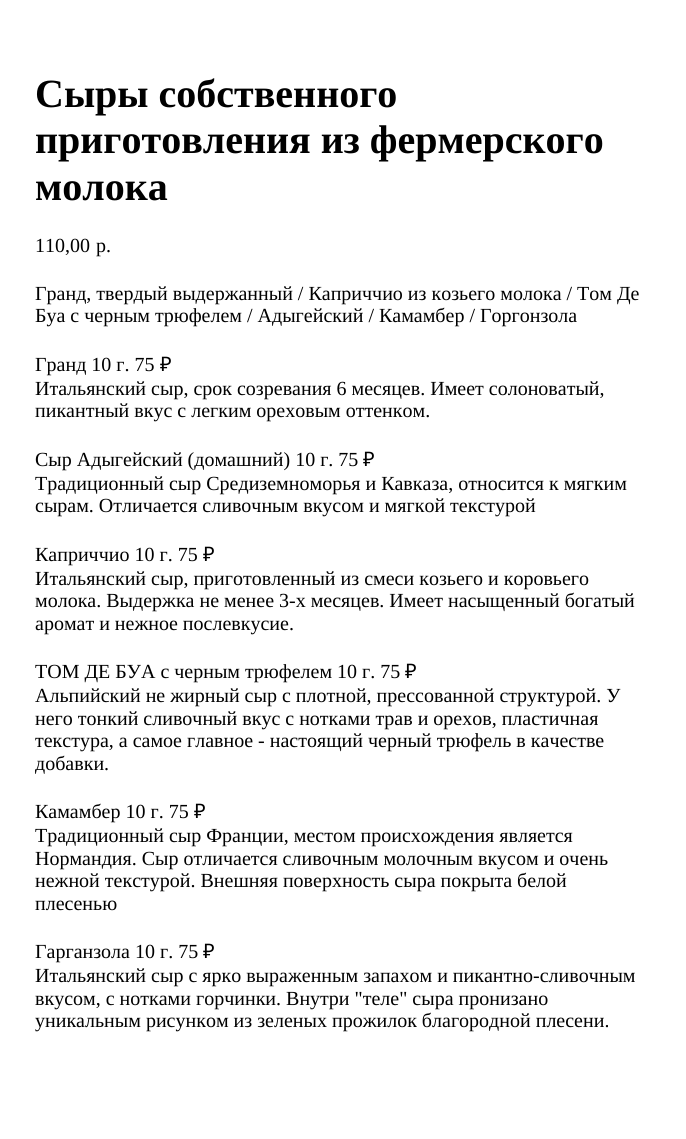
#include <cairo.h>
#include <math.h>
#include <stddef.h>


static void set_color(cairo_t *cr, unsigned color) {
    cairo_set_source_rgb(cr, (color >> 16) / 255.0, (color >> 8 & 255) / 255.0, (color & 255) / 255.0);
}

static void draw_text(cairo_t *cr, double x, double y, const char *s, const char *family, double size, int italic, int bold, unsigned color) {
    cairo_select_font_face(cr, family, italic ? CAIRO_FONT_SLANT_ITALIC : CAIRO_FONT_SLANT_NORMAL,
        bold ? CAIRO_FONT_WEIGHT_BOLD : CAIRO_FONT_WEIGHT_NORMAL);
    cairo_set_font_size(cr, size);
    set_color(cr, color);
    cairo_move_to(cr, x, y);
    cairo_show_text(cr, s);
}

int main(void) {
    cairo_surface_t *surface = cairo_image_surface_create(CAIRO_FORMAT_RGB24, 686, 1139);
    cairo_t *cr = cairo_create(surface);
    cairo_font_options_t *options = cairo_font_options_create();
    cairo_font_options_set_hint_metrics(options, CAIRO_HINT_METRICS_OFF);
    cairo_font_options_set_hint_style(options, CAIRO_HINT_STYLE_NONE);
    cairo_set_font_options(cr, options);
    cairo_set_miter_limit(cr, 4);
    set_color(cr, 0xFFFFFF);
    cairo_paint(cr);
    draw_text(cr, 35, 107, "Сыры собственного", "Liberation Serif", 40, 0, 1, 0x000000);
    draw_text(cr, 35, 153, "приготовления из фермерского", "Liberation Serif", 40, 0, 1, 0x000000);
    draw_text(cr, 35, 200, "молока", "Liberation Serif", 40, 0, 1, 0x000000);
    draw_text(cr, 35, 252, "110,00", "Liberation Serif", 20, 0, 0, 0x000000);
    draw_text(cr, 96, 252, "р.", "Liberation Serif", 20, 0, 0, 0x000000);
    draw_text(cr, 35, 300, "Гранд, твердый выдержанный / Каприччио из козьего молока / Том Де", "Liberation Serif", 20, 0, 0, 0x000000);
    draw_text(cr, 35, 322, "Буа с черным трюфелем / Адыгейский / Камамбер / Горгонзола", "Liberation Serif", 20, 0, 0, 0x000000);
    draw_text(cr, 35, 371, "Гранд 10 г. 75", "Liberation Serif", 20, 0, 0, 0x000000);
    draw_text(cr, 160, 371, "₽", "Noto Sans", 20, 0, 0, 0x000000);
    draw_text(cr, 35, 395, "Итальянский сыр, срок созревания 6 месяцев. Имеет солоноватый,", "Liberation Serif", 20, 0, 0, 0x000000);
    draw_text(cr, 35, 417, "пикантный вкус с легким ореховым оттенком.", "Liberation Serif", 20, 0, 0, 0x000000);
    draw_text(cr, 35, 466, "Сыр Адыгейский (домашний) 10 г. 75", "Liberation Serif", 20, 0, 0, 0x000000);
    draw_text(cr, 363, 466, "₽", "Noto Sans", 20, 0, 0, 0x000000);
    draw_text(cr, 35, 490, "Традиционный сыр Средиземноморья и Кавказа, относится к мягким", "Liberation Serif", 20, 0, 0, 0x000000);
    draw_text(cr, 35, 512, "сырам. Отличается сливочным вкусом и мягкой текстурой", "Liberation Serif", 20, 0, 0, 0x000000);
    draw_text(cr, 35, 561, "Каприччио 10 г. 75", "Liberation Serif", 20, 0, 0, 0x000000);
    draw_text(cr, 203, 561, "₽", "Noto Sans", 20, 0, 0, 0x000000);
    draw_text(cr, 35, 585, "Итальянский сыр, приготовленный из смеси козьего и коровьего", "Liberation Serif", 20, 0, 0, 0x000000);
    draw_text(cr, 35, 607, "молока. Выдержка не менее 3-х месяцев. Имеет насыщенный богатый", "Liberation Serif", 20, 0, 0, 0x000000);
    draw_text(cr, 35, 630, "аромат и нежное послевкусие.", "Liberation Serif", 20, 0, 0, 0x000000);
    draw_text(cr, 35, 678, "ТОМ ДЕ БУА с черным трюфелем 10 г. 75", "Liberation Serif", 20, 0, 0, 0x000000);
    draw_text(cr, 405, 678, "₽", "Noto Sans", 20, 0, 0, 0x000000);
    draw_text(cr, 35, 702, "Альпийский не жирный сыр с плотной, прессованной структурой. У", "Liberation Serif", 20, 0, 0, 0x000000);
    draw_text(cr, 35, 725, "него тонкий сливочный вкус с нотками трав и орехов, пластичная", "Liberation Serif", 20, 0, 0, 0x000000);
    draw_text(cr, 35, 747, "текстура, а самое главное - настоящий черный трюфель в качестве", "Liberation Serif", 20, 0, 0, 0x000000);
    draw_text(cr, 35, 770, "добавки.", "Liberation Serif", 20, 0, 0, 0x000000);
    draw_text(cr, 35, 818, "Камамбер 10 г. 75", "Liberation Serif", 20, 0, 0, 0x000000);
    draw_text(cr, 194, 818, "₽", "Noto Sans", 20, 0, 0, 0x000000);
    draw_text(cr, 35, 842, "Традиционный сыр Франции, местом происхождения является", "Liberation Serif", 20, 0, 0, 0x000000);
    draw_text(cr, 35, 865, "Нормандия. Сыр отличается сливочным молочным вкусом и очень", "Liberation Serif", 20, 0, 0, 0x000000);
    draw_text(cr, 35, 887, "нежной текстурой. Внешняя поверхность сыра покрыта белой", "Liberation Serif", 20, 0, 0, 0x000000);
    draw_text(cr, 35, 910, "плесенью", "Liberation Serif", 20, 0, 0, 0x000000);
    draw_text(cr, 35, 958, "Гарганзола 10 г. 75", "Liberation Serif", 20, 0, 0, 0x000000);
    draw_text(cr, 203, 958, "₽", "Noto Sans", 20, 0, 0, 0x000000);
    draw_text(cr, 35, 982, "Итальянский сыр с ярко выраженным запахом и пикантно-сливочным", "Liberation Serif", 20, 0, 0, 0x000000);
    draw_text(cr, 35, 1005, "вкусом, с нотками горчинки. Внутри \"теле\" сыра пронизано", "Liberation Serif", 20, 0, 0, 0x000000);
    draw_text(cr, 35, 1027, "уникальным рисунком из зеленых прожилок благородной плесени.", "Liberation Serif", 20, 0, 0, 0x000000);
    cairo_surface_write_to_png(surface, "output.png");
    cairo_font_options_destroy(options);
    cairo_destroy(cr);
    cairo_surface_destroy(surface);
    return 0;
}
